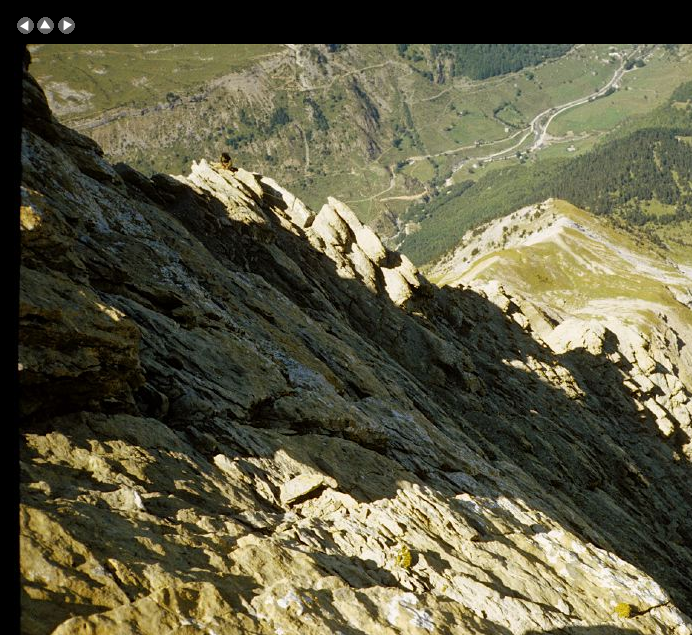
#include <cairo.h>
#include <math.h>
#include <stddef.h>


static void set_color(cairo_t *cr, unsigned color) {
    cairo_set_source_rgb(cr, (color >> 16) / 255.0, (color >> 8 & 255) / 255.0, (color & 255) / 255.0);
}

static void draw_image(cairo_t *cr, const char *path, double x, double y, double w, double h) {
    cairo_surface_t *image = cairo_image_surface_create_from_png(path);
    cairo_save(cr);
    cairo_set_source_surface(cr, image, x, y);
    cairo_rectangle(cr, x, y, w, h);
    cairo_fill(cr);
    cairo_restore(cr);
    cairo_surface_destroy(image);
}

int main(void) {
    cairo_surface_t *surface = cairo_image_surface_create(CAIRO_FORMAT_RGB24, 692, 635);
    cairo_t *cr = cairo_create(surface);
    cairo_font_options_t *options = cairo_font_options_create();
    cairo_font_options_set_hint_metrics(options, CAIRO_HINT_METRICS_OFF);
    cairo_font_options_set_hint_style(options, CAIRO_HINT_STYLE_NONE);
    cairo_set_font_options(cr, options);
    cairo_set_miter_limit(cr, 4);
    set_color(cr, 0x000000);
    cairo_paint(cr);
    draw_image(cr, "assets/img1.png", 17, 17, 17, 17);
    draw_image(cr, "assets/img2.png", 37, 17, 17, 17);
    draw_image(cr, "assets/img3.png", 58, 17, 17, 17);
    draw_image(cr, "assets/img4.png", 14, 44, 678, 591);
    cairo_surface_write_to_png(surface, "output.png");
    cairo_font_options_destroy(options);
    cairo_destroy(cr);
    cairo_surface_destroy(surface);
    return 0;
}
